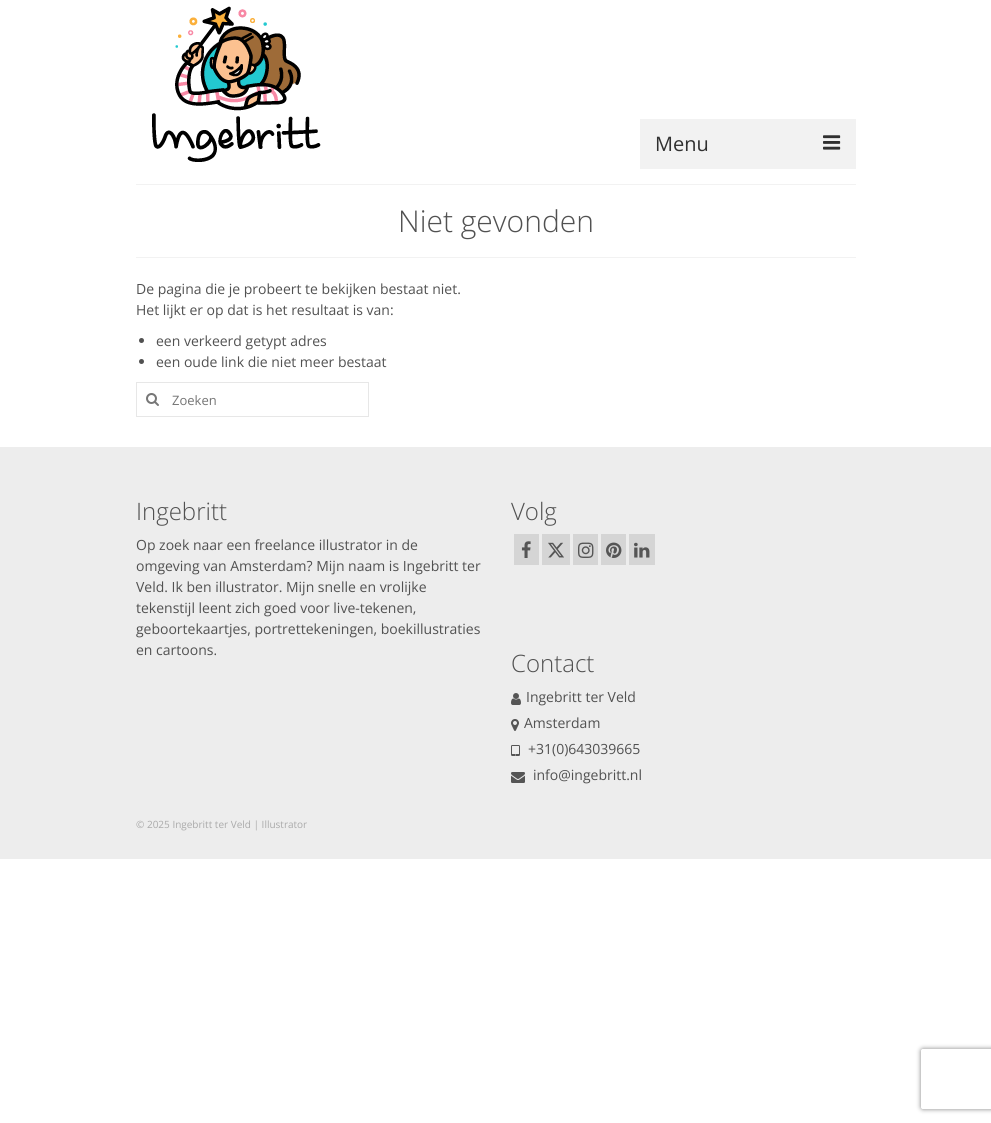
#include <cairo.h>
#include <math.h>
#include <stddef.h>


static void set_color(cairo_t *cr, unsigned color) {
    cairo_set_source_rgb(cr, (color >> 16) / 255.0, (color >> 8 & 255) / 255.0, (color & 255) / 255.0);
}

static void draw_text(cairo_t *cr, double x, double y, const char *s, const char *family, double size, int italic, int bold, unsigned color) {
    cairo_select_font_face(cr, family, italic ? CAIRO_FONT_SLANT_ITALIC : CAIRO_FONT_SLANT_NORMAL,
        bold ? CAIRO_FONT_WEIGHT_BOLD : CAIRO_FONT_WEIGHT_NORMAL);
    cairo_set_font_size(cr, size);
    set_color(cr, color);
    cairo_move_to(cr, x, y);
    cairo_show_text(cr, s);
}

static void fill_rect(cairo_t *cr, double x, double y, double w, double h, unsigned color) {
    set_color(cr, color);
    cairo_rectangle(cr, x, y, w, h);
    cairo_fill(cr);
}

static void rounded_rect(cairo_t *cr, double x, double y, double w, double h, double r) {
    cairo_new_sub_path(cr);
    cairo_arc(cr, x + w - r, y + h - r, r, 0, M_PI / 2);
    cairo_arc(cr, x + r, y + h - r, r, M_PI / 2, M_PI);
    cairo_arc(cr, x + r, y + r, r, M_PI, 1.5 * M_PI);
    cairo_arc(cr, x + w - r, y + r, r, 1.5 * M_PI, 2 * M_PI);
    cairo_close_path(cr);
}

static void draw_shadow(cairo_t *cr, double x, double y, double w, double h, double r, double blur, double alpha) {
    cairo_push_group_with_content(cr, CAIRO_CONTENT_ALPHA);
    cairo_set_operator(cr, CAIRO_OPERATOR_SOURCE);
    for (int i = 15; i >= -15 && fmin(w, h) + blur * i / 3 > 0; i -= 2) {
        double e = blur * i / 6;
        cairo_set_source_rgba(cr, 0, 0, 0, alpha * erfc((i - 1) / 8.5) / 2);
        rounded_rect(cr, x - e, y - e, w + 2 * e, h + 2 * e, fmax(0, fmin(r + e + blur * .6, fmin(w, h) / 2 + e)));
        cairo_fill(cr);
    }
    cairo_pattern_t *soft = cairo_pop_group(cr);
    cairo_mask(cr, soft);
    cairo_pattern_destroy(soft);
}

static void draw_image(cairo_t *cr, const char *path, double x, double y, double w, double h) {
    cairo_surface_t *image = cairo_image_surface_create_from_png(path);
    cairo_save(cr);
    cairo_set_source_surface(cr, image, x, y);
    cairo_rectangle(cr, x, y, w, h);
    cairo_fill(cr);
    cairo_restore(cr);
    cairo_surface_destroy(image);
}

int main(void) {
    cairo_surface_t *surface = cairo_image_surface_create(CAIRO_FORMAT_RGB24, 991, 1123);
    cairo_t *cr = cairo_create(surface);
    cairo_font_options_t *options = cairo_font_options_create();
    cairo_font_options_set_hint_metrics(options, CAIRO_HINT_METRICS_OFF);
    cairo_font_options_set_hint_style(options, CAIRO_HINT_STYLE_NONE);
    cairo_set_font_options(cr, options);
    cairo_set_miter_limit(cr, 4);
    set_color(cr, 0xFFFFFF);
    cairo_paint(cr);
    draw_image(cr, "assets/img1.png", 152, 6, 169, 156);
    fill_rect(cr, 640, 119, 216, 50, 0xF2F2F2);
    draw_text(cr, 655, 151, "Menu", "Open Sans", 20, 0, 0, 0x303030);
    draw_image(cr, "assets/img2.png", 823, 135, 18, 15);
    fill_rect(cr, 136, 184, 720, 1, 0xF2F2F2);
    fill_rect(cr, 136, 257, 720, 1, 0xF2F2F2);
    draw_text(cr, 398, 232, "Niet gevonden", "Open Sans Light", 30, 0, 0, 0x515151);
    draw_text(cr, 136, 294, "De pagina die je probeert te bekijken bestaat niet.", "Open Sans", 14, 0, 0, 0x515151);
    draw_text(cr, 136, 315, "Het lijkt er op dat is het resultaat is van:", "Open Sans", 14, 0, 0, 0x515151);
    cairo_new_path(cr);
    cairo_arc(cr, 141.5, 340.5, 2.5, 0, 2 * M_PI);
    cairo_fill(cr);
    draw_text(cr, 156, 346, "een verkeerd getypt adres", "Open Sans", 14, 0, 0, 0x515151);
    cairo_new_path(cr);
    cairo_arc(cr, 141.5, 361.5, 2.5, 0, 2 * M_PI);
    cairo_fill(cr);
    draw_text(cr, 156, 367, "een oude link die niet meer bestaat", "Open Sans", 14, 0, 0, 0x515151);
    cairo_rectangle(cr, 136.5, 382.5, 232, 34);
    set_color(cr, 0xE7E7E7);
    cairo_set_line_width(cr, 1);
    cairo_stroke(cr);
    draw_image(cr, "assets/img3.png", 146, 393, 13, 13);
    draw_text(cr, 172, 405, "Zoeken", "Open Sans", 13, 0, 0, 0x757575);
    fill_rect(cr, 0, 447, 991, 412, 0xEDEDED);
    draw_text(cr, 136, 520, "Ingebritt", "Open Sans Light", 24, 0, 0, 0x515151);
    draw_text(cr, 136, 550, "Op zoek naar een freelance illustrator in de", "Open Sans", 14, 0, 0, 0x515151);
    draw_text(cr, 136, 571, "omgeving van Amsterdam? Mijn naam is Ingebritt ter", "Open Sans", 14, 0, 0, 0x515151);
    draw_text(cr, 136, 592, "Veld. Ik ben illustrator. Mijn snelle en vrolijke", "Open Sans", 14, 0, 0, 0x515151);
    draw_text(cr, 136, 613, "tekenstijl leent zich goed voor live-tekenen,", "Open Sans", 14, 0, 0, 0x515151);
    draw_text(cr, 136, 634, "geboortekaartjes, portrettekeningen, boekillustraties", "Open Sans", 14, 0, 0, 0x515151);
    draw_text(cr, 136, 655, "en cartoons.", "Open Sans", 14, 0, 0, 0x515151);
    draw_text(cr, 511, 520, "Volg", "Open Sans Light", 24, 0, 0, 0x515151);
    fill_rect(cr, 514, 534, 25, 31, 0xD5D5D5);
    draw_image(cr, "assets/img4.png", 521, 541, 10, 17);
    fill_rect(cr, 542, 534, 28, 31, 0xD5D5D5);
    draw_image(cr, "assets/img5.png", 548, 542, 16, 16);
    fill_rect(cr, 573, 534, 25, 31, 0xD5D5D5);
    draw_image(cr, "assets/img6.png", 578, 542, 16, 16);
    fill_rect(cr, 601, 534, 25, 31, 0xD5D5D5);
    draw_image(cr, "assets/img7.png", 606, 542, 16, 16);
    fill_rect(cr, 629, 534, 26, 31, 0xD5D5D5);
    draw_image(cr, "assets/img8.png", 634, 542, 16, 16);
    draw_text(cr, 511, 672, "Contact", "Open Sans Light", 24, 0, 0, 0x515151);
    draw_image(cr, "assets/img9.png", 511, 693, 10, 12);
    draw_text(cr, 526, 702, "Ingebritt ter Veld", "Open Sans", 14, 0, 0, 0x515151);
    draw_image(cr, "assets/img10.png", 511, 719, 8, 12);
    draw_text(cr, 524, 728, "Amsterdam", "Open Sans", 14, 0, 0, 0x515151);
    draw_image(cr, "assets/img11.png", 511, 745, 9, 11);
    draw_text(cr, 528, 754, "+31(0)643039665", "Open Sans", 14, 0, 0, 0x515151);
    draw_image(cr, "assets/img12.png", 511, 772, 14, 11);
    draw_text(cr, 533, 780, "info@ingebritt.nl", "Open Sans", 14, 0, 0, 0x515151);
    draw_text(cr, 136, 828, "© 2025 Ingebritt ter Veld | Illustrator", "Open Sans", 10, 0, 0, 0xAAAAAA);
    cairo_save(cr);
    cairo_set_fill_rule(cr, CAIRO_FILL_RULE_EVEN_ODD);
    cairo_new_path(cr);
    cairo_move_to(cr, 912, 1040);
    cairo_line_to(cr, 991, 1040);
    cairo_line_to(cr, 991, 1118);
    cairo_line_to(cr, 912, 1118);
    cairo_close_path(cr);
    cairo_move_to(cr, 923, 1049);
    cairo_line_to(cr, 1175, 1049);
    cairo_curve_to(cr, 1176, 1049, 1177, 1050, 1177, 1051);
    cairo_line_to(cr, 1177, 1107);
    cairo_curve_to(cr, 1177, 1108, 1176, 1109, 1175, 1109);
    cairo_line_to(cr, 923, 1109);
    cairo_curve_to(cr, 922, 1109, 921, 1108, 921, 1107);
    cairo_line_to(cr, 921, 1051);
    cairo_curve_to(cr, 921, 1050, 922, 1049, 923, 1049);
    cairo_close_path(cr);
    cairo_clip(cr);
    set_color(cr, 0x808080);
    draw_shadow(cr, 921, 1049, 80, 60, 2, 2.5, 1);
    cairo_restore(cr);
    cairo_surface_write_to_png(surface, "output.png");
    cairo_font_options_destroy(options);
    cairo_destroy(cr);
    cairo_surface_destroy(surface);
    return 0;
}
